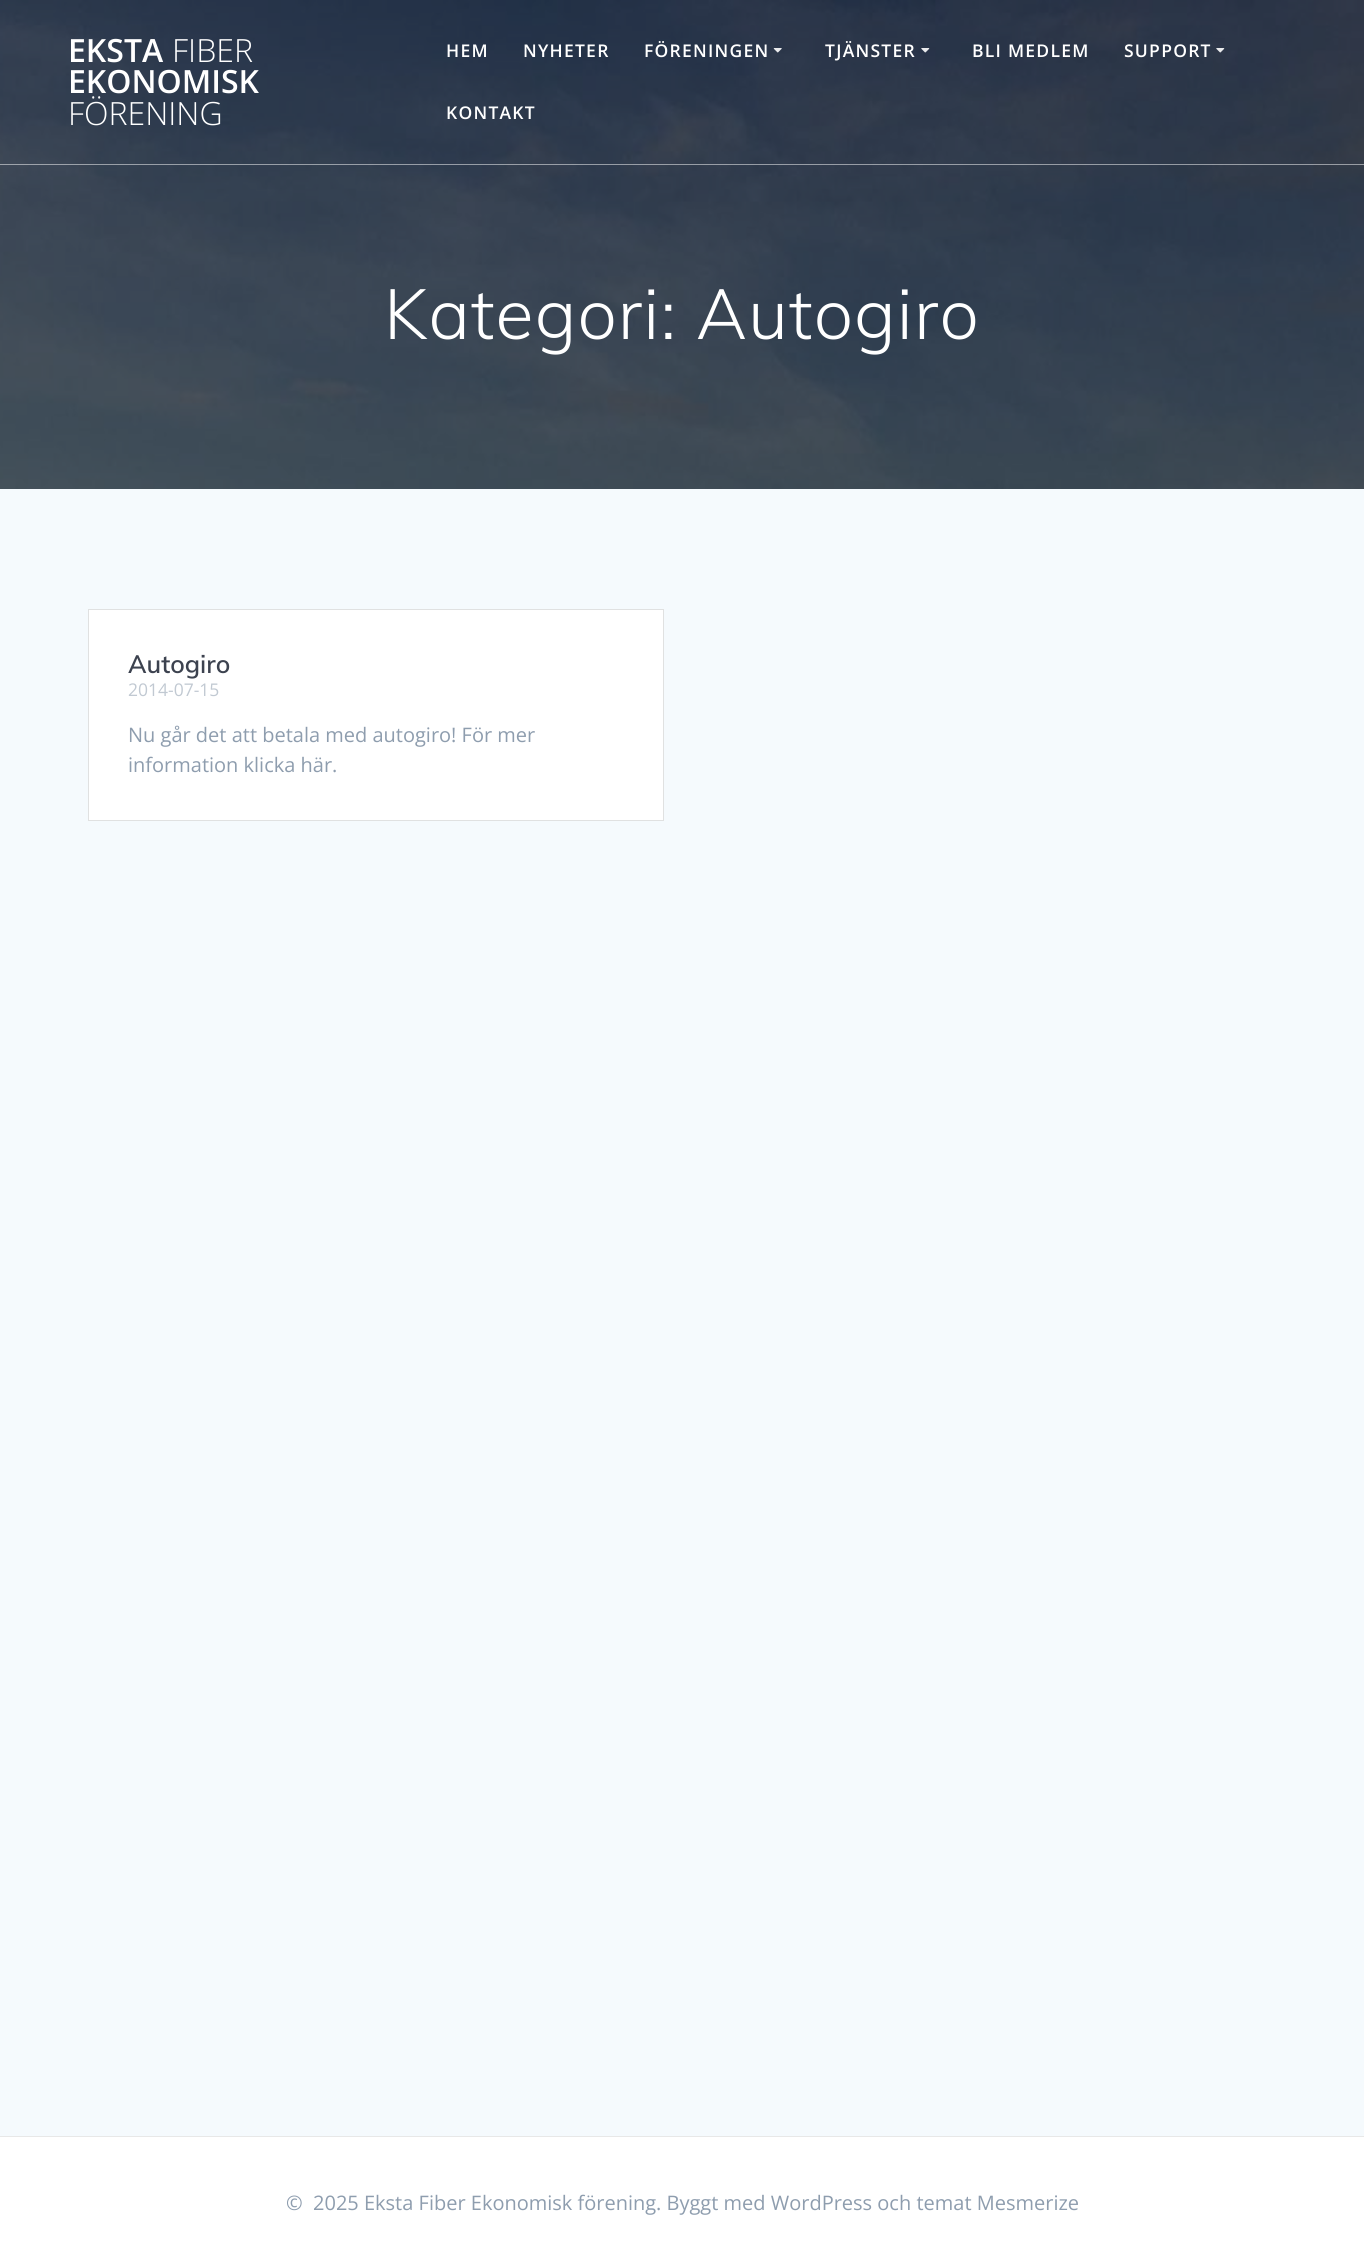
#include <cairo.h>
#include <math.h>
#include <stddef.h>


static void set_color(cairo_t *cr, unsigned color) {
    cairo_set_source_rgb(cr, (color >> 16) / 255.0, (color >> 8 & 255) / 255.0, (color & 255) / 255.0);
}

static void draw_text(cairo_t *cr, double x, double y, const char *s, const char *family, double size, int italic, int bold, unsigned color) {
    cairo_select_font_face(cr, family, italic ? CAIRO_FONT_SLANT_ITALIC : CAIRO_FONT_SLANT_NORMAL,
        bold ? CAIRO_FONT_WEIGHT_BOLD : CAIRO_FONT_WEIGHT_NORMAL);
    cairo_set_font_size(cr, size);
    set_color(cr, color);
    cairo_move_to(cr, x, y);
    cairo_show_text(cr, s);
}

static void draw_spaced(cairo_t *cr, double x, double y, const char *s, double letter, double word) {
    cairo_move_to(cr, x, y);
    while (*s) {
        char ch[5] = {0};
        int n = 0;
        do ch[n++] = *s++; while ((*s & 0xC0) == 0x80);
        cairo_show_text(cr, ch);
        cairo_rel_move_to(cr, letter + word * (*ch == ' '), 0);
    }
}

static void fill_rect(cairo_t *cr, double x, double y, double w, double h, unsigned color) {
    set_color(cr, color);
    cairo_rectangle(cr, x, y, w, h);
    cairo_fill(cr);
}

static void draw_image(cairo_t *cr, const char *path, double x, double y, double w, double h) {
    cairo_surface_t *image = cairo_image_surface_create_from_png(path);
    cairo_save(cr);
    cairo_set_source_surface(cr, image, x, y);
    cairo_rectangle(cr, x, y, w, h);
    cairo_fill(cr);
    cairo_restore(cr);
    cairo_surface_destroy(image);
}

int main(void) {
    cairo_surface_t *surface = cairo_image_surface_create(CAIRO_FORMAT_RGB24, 1364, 2266);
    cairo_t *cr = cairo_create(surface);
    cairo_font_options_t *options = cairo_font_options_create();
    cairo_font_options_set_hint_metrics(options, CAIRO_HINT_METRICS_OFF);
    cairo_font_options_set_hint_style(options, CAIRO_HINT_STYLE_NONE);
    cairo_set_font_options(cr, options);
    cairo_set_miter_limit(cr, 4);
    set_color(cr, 0xFFFFFF);
    cairo_paint(cr);
    draw_image(cr, "assets/img4.png", 0, 0, 1364, 489);
    cairo_set_source_rgba(cr, 1, 1, 1, 0.5);
    cairo_rectangle(cr, 0, 164, 1364, 1);
    cairo_fill(cr);
    draw_text(cr, 68, 62, "EKSTA", "Open Sans SemiBold", 32, 0, 0, 0xFFFFFF);
    draw_text(cr, 172, 62, "FIBER", "Open Sans Light", 32, 0, 0, 0xFFFFFF);
    draw_text(cr, 68, 93, "EKONOMISK", "Open Sans SemiBold", 32, 0, 0, 0xFFFFFF);
    draw_text(cr, 68, 125, "FÖRENING", "Open Sans Light", 32, 0, 0, 0xFFFFFF);
    cairo_select_font_face(cr, "Open Sans SemiBold", CAIRO_FONT_SLANT_NORMAL, CAIRO_FONT_WEIGHT_NORMAL);
    cairo_set_font_size(cr, 17.5);
    draw_spaced(cr, 446, 57, "HEM", 1.25, 0);
    draw_spaced(cr, 523, 57, "NYHETER", 1.25, 0);
    draw_spaced(cr, 644, 57, "FÖRENINGEN", 1.25, 0);
    draw_image(cr, "assets/img1.png", 773, 48, 9, 5);
    draw_spaced(cr, 825, 57, "TJÄNSTER", 1.25, 0);
    draw_image(cr, "assets/img2.png", 921, 48, 9, 5);
    draw_spaced(cr, 972, 57, "BLI MEDLEM", 1.25, 0);
    draw_spaced(cr, 1124, 57, "SUPPORT", 1.25, 0);
    draw_image(cr, "assets/img3.png", 1216, 48, 9, 5);
    draw_spaced(cr, 446, 119, "KONTAKT", 1.25, 0);
    cairo_select_font_face(cr, "Muli Light", CAIRO_FONT_SLANT_NORMAL, CAIRO_FONT_WEIGHT_NORMAL);
    cairo_set_font_size(cr, 70);
    draw_spaced(cr, 384, 339, "Kategori: Autogiro", 1.1, 0);
    fill_rect(cr, 0, 489, 1364, 1647, 0xF5FAFD);
    set_color(cr, 0xFFFFFF);
    cairo_rectangle(cr, 88.5, 609.5, 575, 211);
    cairo_fill_preserve(cr);
    set_color(cr, 0xE0E1E1);
    cairo_set_line_width(cr, 1);
    cairo_stroke(cr);
    draw_text(cr, 128, 673, "Autogiro", "Muli SemiBold", 25, 0, 0, 0x3C424F);
    draw_text(cr, 128, 696, "2014-07-15", "Open Sans", 17.5, 0, 0, 0xC1C9D2);
    draw_text(cr, 128, 742, "Nu går det att betala med autogiro! För mer", "Open Sans", 20, 0, 0, 0x8E9DAE);
    draw_text(cr, 128, 772, "information klicka här.", "Open Sans", 20, 0, 0, 0x8E9DAE);
    fill_rect(cr, 0, 2136, 1364, 1, 0xE8E8E8);
    draw_text(cr, 286, 2210, "©  2025 Eksta Fiber Ekonomisk förening. Byggt med WordPress och temat Mesmerize", "Open Sans", 20, 0, 0, 0x8E9DAE);
    cairo_surface_write_to_png(surface, "output.png");
    cairo_font_options_destroy(options);
    cairo_destroy(cr);
    cairo_surface_destroy(surface);
    return 0;
}
